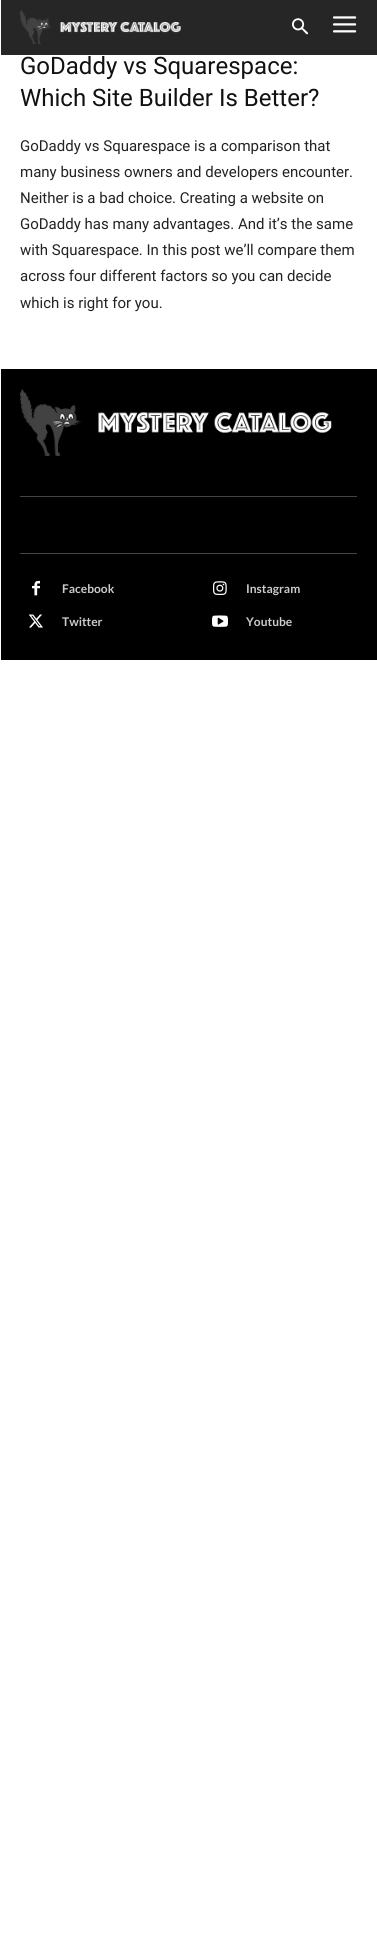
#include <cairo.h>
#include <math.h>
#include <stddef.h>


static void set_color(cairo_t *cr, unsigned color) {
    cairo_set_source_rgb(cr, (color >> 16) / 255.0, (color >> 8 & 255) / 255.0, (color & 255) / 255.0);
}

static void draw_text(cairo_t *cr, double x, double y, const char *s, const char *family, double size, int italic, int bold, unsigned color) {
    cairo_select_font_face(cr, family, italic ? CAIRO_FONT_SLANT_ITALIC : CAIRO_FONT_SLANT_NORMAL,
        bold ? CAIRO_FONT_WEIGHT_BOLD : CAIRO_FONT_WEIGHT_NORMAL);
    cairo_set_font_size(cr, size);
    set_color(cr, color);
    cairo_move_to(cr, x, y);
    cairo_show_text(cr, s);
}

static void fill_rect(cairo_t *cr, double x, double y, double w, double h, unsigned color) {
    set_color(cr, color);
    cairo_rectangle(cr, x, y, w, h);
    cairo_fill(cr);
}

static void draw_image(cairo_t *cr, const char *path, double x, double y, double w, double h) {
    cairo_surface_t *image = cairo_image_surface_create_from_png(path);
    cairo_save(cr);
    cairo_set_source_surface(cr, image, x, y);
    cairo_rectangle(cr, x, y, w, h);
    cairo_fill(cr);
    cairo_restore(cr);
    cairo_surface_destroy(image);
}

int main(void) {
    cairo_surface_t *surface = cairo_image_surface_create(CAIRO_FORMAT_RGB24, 377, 1934);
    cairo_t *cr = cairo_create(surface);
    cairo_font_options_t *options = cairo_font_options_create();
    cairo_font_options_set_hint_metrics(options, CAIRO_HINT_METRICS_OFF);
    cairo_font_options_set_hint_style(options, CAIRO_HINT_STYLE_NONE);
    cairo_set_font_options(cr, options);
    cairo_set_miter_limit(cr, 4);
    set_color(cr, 0xFFFFFF);
    cairo_paint(cr);
    fill_rect(cr, 1, 0, 376, 55, 0x262626);
    draw_image(cr, "assets/img4.png", 62, 19, 3, 5);
    draw_image(cr, "assets/img1.png", 20, 10, 161, 34);
    draw_image(cr, "assets/img2.png", 292, 18, 16, 17);
    draw_image(cr, "assets/img3.png", 333, 16, 24, 17);
    draw_text(cr, 20, 74, "GoDaddy vs Squarespace:", "Roboto", 24, 0, 0, 0x111111);
    draw_text(cr, 20, 106, "Which Site Builder Is Better?", "Roboto", 24, 0, 0, 0x111111);
    draw_text(cr, 20, 151, "GoDaddy vs Squarespace is a comparison that", "Roboto", 15, 0, 0, 0x222222);
    draw_text(cr, 20, 177, "many business owners and developers encounter.", "Roboto", 15, 0, 0, 0x222222);
    draw_text(cr, 20, 203, "Neither is a bad choice. Creating a website on", "Roboto", 15, 0, 0, 0x222222);
    draw_text(cr, 20, 229, "GoDaddy has many advantages. And it’s the same", "Roboto", 15, 0, 0, 0x222222);
    draw_text(cr, 20, 255, "with Squarespace. In this post we’ll compare them", "Roboto", 15, 0, 0, 0x222222);
    draw_text(cr, 20, 281, "across four different factors so you can decide", "Roboto", 15, 0, 0, 0x222222);
    draw_text(cr, 20, 308, "which is right for you.", "Roboto", 15, 0, 0, 0x222222);
    fill_rect(cr, 1, 369, 376, 291, 0x000000);
    fill_rect(cr, 20, 496, 337, 1, 0x444444);
    draw_image(cr, "assets/img5.png", 20, 389, 312, 67);
    fill_rect(cr, 20, 553, 337, 1, 0x444444);
    draw_image(cr, "assets/img6.png", 32, 580, 8, 16);
    draw_text(cr, 62, 593, "Facebook", "Lato", 12, 0, 1, 0xCCCCCC);
    draw_image(cr, "assets/img7.png", 213, 581, 14, 14);
    draw_text(cr, 246, 593, "Instagram", "Lato", 12, 0, 1, 0xCCCCCC);
    draw_image(cr, "assets/img8.png", 28, 614, 15, 14);
    draw_text(cr, 62, 626, "Twitter", "Lato", 12, 0, 1, 0xCCCCCC);
    draw_image(cr, "assets/img9.png", 212, 615, 16, 12);
    draw_text(cr, 246, 626, "Youtube", "Lato", 12, 0, 1, 0xCCCCCC);
    cairo_surface_write_to_png(surface, "output.png");
    cairo_font_options_destroy(options);
    cairo_destroy(cr);
    cairo_surface_destroy(surface);
    return 0;
}
